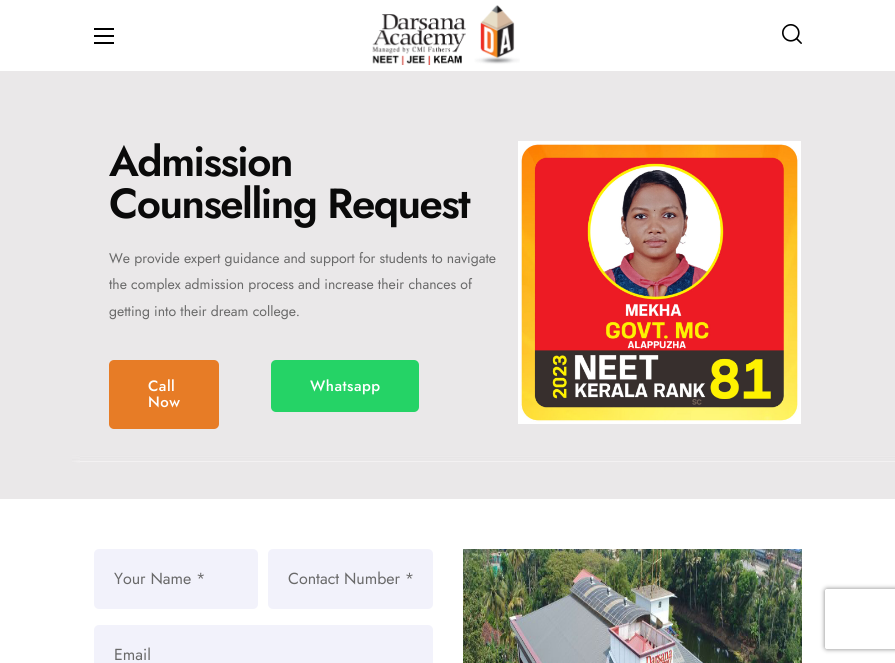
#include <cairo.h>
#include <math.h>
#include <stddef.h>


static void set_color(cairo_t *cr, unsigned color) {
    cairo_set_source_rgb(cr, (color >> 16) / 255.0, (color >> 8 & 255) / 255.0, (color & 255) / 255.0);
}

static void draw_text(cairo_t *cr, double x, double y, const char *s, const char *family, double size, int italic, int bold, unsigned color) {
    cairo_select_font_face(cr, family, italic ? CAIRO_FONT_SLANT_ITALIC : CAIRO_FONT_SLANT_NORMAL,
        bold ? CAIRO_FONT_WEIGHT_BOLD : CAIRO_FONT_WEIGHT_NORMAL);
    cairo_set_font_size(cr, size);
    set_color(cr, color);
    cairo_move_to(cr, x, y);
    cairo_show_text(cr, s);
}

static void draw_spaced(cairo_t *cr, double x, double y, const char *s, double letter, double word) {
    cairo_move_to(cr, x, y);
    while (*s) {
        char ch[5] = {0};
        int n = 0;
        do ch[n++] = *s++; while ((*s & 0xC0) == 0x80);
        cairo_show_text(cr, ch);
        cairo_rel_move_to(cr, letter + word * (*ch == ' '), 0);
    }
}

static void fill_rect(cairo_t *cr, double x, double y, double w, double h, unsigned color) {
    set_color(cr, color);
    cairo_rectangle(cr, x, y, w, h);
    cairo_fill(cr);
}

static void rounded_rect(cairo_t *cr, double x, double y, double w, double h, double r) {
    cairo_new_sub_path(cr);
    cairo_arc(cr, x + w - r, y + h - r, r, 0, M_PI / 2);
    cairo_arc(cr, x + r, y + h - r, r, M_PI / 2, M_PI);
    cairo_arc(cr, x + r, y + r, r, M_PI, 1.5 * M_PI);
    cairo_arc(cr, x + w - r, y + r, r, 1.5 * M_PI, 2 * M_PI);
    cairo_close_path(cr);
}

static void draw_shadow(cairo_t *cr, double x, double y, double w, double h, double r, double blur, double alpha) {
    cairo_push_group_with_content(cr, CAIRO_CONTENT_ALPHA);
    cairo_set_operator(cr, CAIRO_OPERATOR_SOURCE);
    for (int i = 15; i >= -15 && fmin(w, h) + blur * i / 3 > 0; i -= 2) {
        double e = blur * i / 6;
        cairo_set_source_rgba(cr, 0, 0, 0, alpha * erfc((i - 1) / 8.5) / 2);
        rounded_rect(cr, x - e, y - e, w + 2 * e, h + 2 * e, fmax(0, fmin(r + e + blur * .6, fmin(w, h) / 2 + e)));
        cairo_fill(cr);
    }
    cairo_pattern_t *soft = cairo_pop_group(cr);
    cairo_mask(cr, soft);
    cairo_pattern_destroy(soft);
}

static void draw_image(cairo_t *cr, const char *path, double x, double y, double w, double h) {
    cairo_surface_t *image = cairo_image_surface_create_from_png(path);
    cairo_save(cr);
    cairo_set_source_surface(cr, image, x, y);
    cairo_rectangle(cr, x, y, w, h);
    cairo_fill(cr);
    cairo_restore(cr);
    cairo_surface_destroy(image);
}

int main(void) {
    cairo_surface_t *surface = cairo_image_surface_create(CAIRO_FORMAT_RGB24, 895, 663);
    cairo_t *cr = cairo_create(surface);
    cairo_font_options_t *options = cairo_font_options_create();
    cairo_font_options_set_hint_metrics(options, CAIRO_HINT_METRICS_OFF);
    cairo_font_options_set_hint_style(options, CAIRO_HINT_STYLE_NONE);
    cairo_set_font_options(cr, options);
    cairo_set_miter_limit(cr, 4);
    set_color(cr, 0xFFFFFF);
    cairo_paint(cr);
    fill_rect(cr, 94, 28, 20, 2, 0x000000);
    fill_rect(cr, 94, 35, 20, 2, 0x000000);
    fill_rect(cr, 94, 42, 20, 2, 0x000000);
    draw_image(cr, "assets/img1.png", 372, 5, 148, 60);
    draw_image(cr, "assets/img2.png", 782, 24, 20, 20);
    draw_image(cr, "assets/img3.png", 0, 71, 895, 428);
    cairo_select_font_face(cr, "Jost SemiBold", CAIRO_FONT_SLANT_NORMAL, CAIRO_FONT_WEIGHT_NORMAL);
    cairo_set_font_size(cr, 42);
    set_color(cr, 0x0A0A0A);
    draw_spaced(cr, 109, 176, "Admission", -1.5, 0);
    draw_spaced(cr, 109, 218, "Counselling Request", -1.5, 0);
    draw_text(cr, 109, 263, "We provide expert guidance and support for students to navigate", "Jost", 14, 0, 0, 0x696969);
    draw_text(cr, 109, 289, "the complex admission process and increase their chances of", "Jost", 14, 0, 0, 0x696969);
    draw_text(cr, 109, 316, "getting into their dream college.", "Jost", 14, 0, 0, 0x696969);
    set_color(cr, 0xE77C26);
    rounded_rect(cr, 109, 360, 110, 69, 5);
    cairo_fill(cr);
    cairo_select_font_face(cr, "Jost Medium", CAIRO_FONT_SLANT_NORMAL, CAIRO_FONT_WEIGHT_NORMAL);
    cairo_set_font_size(cr, 15);
    set_color(cr, 0xFFFFFF);
    draw_spaced(cr, 148, 391, "Call", 0.5, 0);
    draw_spaced(cr, 148, 407, "Now", 0.5, 0);
    set_color(cr, 0x25D366);
    rounded_rect(cr, 271, 360, 148, 52, 5);
    cairo_fill(cr);
    set_color(cr, 0xFFFFFF);
    draw_spaced(cr, 310, 391, "Whatsapp", 0.5, 0);
    draw_image(cr, "assets/img4.png", 518, 141, 283, 283);
    set_color(cr, 0xF2F2FB);
    rounded_rect(cr, 94, 549, 164, 60, 5);
    cairo_fill(cr);
    draw_text(cr, 114, 584, "Your Name *", "Jost", 16, 0, 0, 0x696969);
    set_color(cr, 0xF2F2FB);
    rounded_rect(cr, 268, 549, 165, 60, 5);
    cairo_fill(cr);
    draw_text(cr, 288, 584, "Contact Number *", "Jost", 16, 0, 0, 0x696969);
    set_color(cr, 0xF2F2FB);
    rounded_rect(cr, 94, 625, 339, 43, 5);
    cairo_fill(cr);
    draw_text(cr, 114, 660, "Email", "Jost", 16, 0, 0, 0x696969);
    draw_image(cr, "assets/img5.png", 463, 549, 339, 114);
    cairo_save(cr);
    cairo_set_fill_rule(cr, CAIRO_FILL_RULE_EVEN_ODD);
    cairo_new_path(cr);
    cairo_move_to(cr, 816, 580);
    cairo_line_to(cr, 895, 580);
    cairo_line_to(cr, 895, 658);
    cairo_line_to(cr, 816, 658);
    cairo_close_path(cr);
    cairo_move_to(cr, 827, 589);
    cairo_line_to(cr, 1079, 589);
    cairo_curve_to(cr, 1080, 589, 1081, 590, 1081, 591);
    cairo_line_to(cr, 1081, 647);
    cairo_curve_to(cr, 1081, 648, 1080, 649, 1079, 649);
    cairo_line_to(cr, 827, 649);
    cairo_curve_to(cr, 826, 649, 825, 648, 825, 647);
    cairo_line_to(cr, 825, 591);
    cairo_curve_to(cr, 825, 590, 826, 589, 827, 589);
    cairo_close_path(cr);
    cairo_clip(cr);
    set_color(cr, 0x808080);
    draw_shadow(cr, 825, 589, 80, 60, 2, 2.5, 1);
    cairo_restore(cr);
    cairo_surface_write_to_png(surface, "output.png");
    cairo_font_options_destroy(options);
    cairo_destroy(cr);
    cairo_surface_destroy(surface);
    return 0;
}
